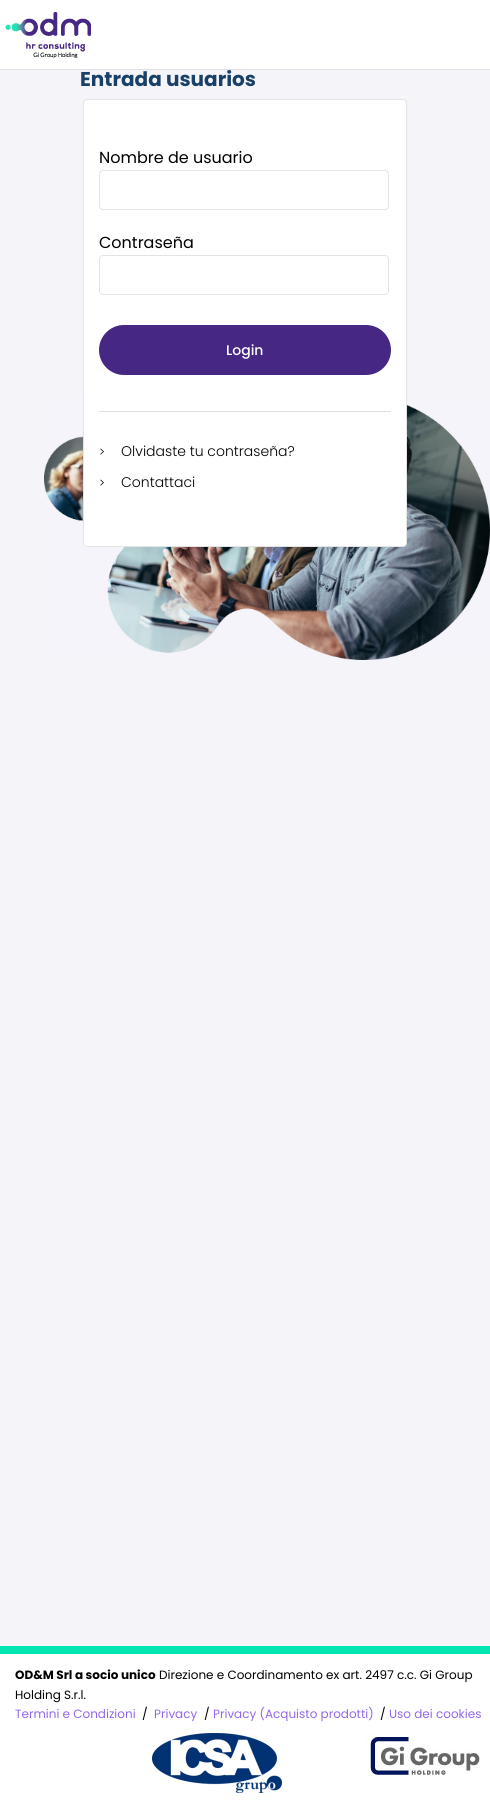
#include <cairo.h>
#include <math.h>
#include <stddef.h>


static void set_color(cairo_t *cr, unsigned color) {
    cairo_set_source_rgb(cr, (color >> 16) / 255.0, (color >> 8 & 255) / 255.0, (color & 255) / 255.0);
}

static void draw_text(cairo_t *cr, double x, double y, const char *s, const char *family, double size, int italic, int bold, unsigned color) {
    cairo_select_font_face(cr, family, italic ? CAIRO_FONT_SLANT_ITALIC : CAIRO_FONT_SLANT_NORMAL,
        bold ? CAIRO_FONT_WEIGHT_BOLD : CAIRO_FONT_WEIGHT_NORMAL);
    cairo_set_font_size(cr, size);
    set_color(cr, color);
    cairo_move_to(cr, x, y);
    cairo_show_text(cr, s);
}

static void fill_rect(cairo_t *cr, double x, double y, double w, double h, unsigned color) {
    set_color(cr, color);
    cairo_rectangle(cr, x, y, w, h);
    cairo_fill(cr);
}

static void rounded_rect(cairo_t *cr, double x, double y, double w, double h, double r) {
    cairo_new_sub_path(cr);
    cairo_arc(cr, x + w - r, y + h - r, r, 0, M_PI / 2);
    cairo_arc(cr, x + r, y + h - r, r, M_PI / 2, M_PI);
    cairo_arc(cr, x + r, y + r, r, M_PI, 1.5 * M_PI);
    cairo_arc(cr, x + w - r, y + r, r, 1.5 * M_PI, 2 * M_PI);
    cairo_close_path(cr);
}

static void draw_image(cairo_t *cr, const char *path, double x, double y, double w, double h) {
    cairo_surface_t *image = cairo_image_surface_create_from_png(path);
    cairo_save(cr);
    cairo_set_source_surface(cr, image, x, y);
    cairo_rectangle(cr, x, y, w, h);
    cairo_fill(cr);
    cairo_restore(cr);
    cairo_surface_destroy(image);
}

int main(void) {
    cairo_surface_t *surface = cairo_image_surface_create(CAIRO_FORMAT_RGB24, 490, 1809);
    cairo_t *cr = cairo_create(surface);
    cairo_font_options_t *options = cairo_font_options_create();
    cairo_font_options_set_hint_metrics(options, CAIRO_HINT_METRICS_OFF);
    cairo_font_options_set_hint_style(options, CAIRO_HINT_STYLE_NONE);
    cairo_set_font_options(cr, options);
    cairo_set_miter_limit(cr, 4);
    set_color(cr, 0xF5F4F9);
    cairo_paint(cr);
    fill_rect(cr, 0, 0, 490, 69, 0xFFFFFF);
    fill_rect(cr, 0, 69, 490, 1, 0xE0E0E0);
    draw_image(cr, "assets/img1.png", 5, 12, 86, 46);
    draw_image(cr, "assets/img2.png", 44, 396, 446, 264);
    draw_text(cr, 80, 86, "Entrada usuarios", "Poppins", 20, 0, 1, 0x194067);
    set_color(cr, 0xFFFFFF);
    rounded_rect(cr, 83.5, 99.5, 323, 447, 3.5);
    cairo_fill_preserve(cr);
    set_color(cr, 0xE4E4E4);
    cairo_set_line_width(cr, 1);
    cairo_stroke(cr);
    draw_text(cr, 99, 163, "Nombre de usuario", "Poppins", 16, 0, 0, 0x000000);
    rounded_rect(cr, 99.5, 170.5, 289, 39, 3.5);
    set_color(cr, 0xE4E4E4);
    cairo_stroke(cr);
    draw_text(cr, 99, 248, "Contraseña", "Poppins", 16, 0, 0, 0x000000);
    rounded_rect(cr, 99.5, 255.5, 289, 39, 3.5);
    set_color(cr, 0xE4E4E4);
    cairo_stroke(cr);
    fill_rect(cr, 99, 411, 292, 1, 0xDEDEDE);
    set_color(cr, 0x462884);
    rounded_rect(cr, 99, 325, 292, 50, 25);
    cairo_fill(cr);
    draw_text(cr, 226, 355, "Login", "Poppins Medium", 14, 0, 0, 0xFFFFFF);
    draw_text(cr, 99, 456, ">", "Poppins Light", 12, 0, 0, 0x000000);
    draw_text(cr, 121, 456, "Olvidaste tu contraseña?", "Poppins Light", 14, 0, 0, 0x000000);
    draw_text(cr, 99, 487, ">", "Poppins Light", 12, 0, 0, 0x000000);
    draw_text(cr, 121, 487, "Contattaci", "Poppins Light", 14, 0, 0, 0x000000);
    fill_rect(cr, 0, 1654, 490, 155, 0xFFFFFF);
    fill_rect(cr, 0, 1646, 490, 8, 0x00E5B4);
    draw_text(cr, 15, 1679, "OD&M Srl a socio unico", "Poppins", 12, 0, 1, 0x000000);
    draw_text(cr, 159, 1679, "Direzione e Coordinamento ex art. 2497 c.c. Gi Group", "Poppins", 12, 0, 0, 0x000000);
    draw_text(cr, 15, 1699, "Holding S.r.l.", "Poppins", 12, 0, 0, 0x000000);
    draw_text(cr, 15, 1718, "Termini e Condizioni", "Poppins", 12, 0, 0, 0x9367EA);
    draw_text(cr, 142, 1718, "/", "Poppins", 12, 0, 0, 0x000000);
    draw_text(cr, 154, 1718, "Privacy", "Poppins", 12, 0, 0, 0x9367EA);
    draw_text(cr, 204, 1718, "/", "Poppins", 12, 0, 0, 0x000000);
    draw_text(cr, 213, 1718, "Privacy (Acquisto prodotti)", "Poppins", 12, 0, 0, 0x9367EA);
    draw_text(cr, 380, 1718, "/", "Poppins", 12, 0, 0, 0x000000);
    draw_text(cr, 389, 1718, "Uso dei cookies", "Poppins", 12, 0, 0, 0x9367EA);
    draw_image(cr, "assets/img3.png", 152, 1733, 130, 60);
    draw_image(cr, "assets/img4.png", 365, 1733, 115, 44);
    cairo_surface_write_to_png(surface, "output.png");
    cairo_font_options_destroy(options);
    cairo_destroy(cr);
    cairo_surface_destroy(surface);
    return 0;
}
